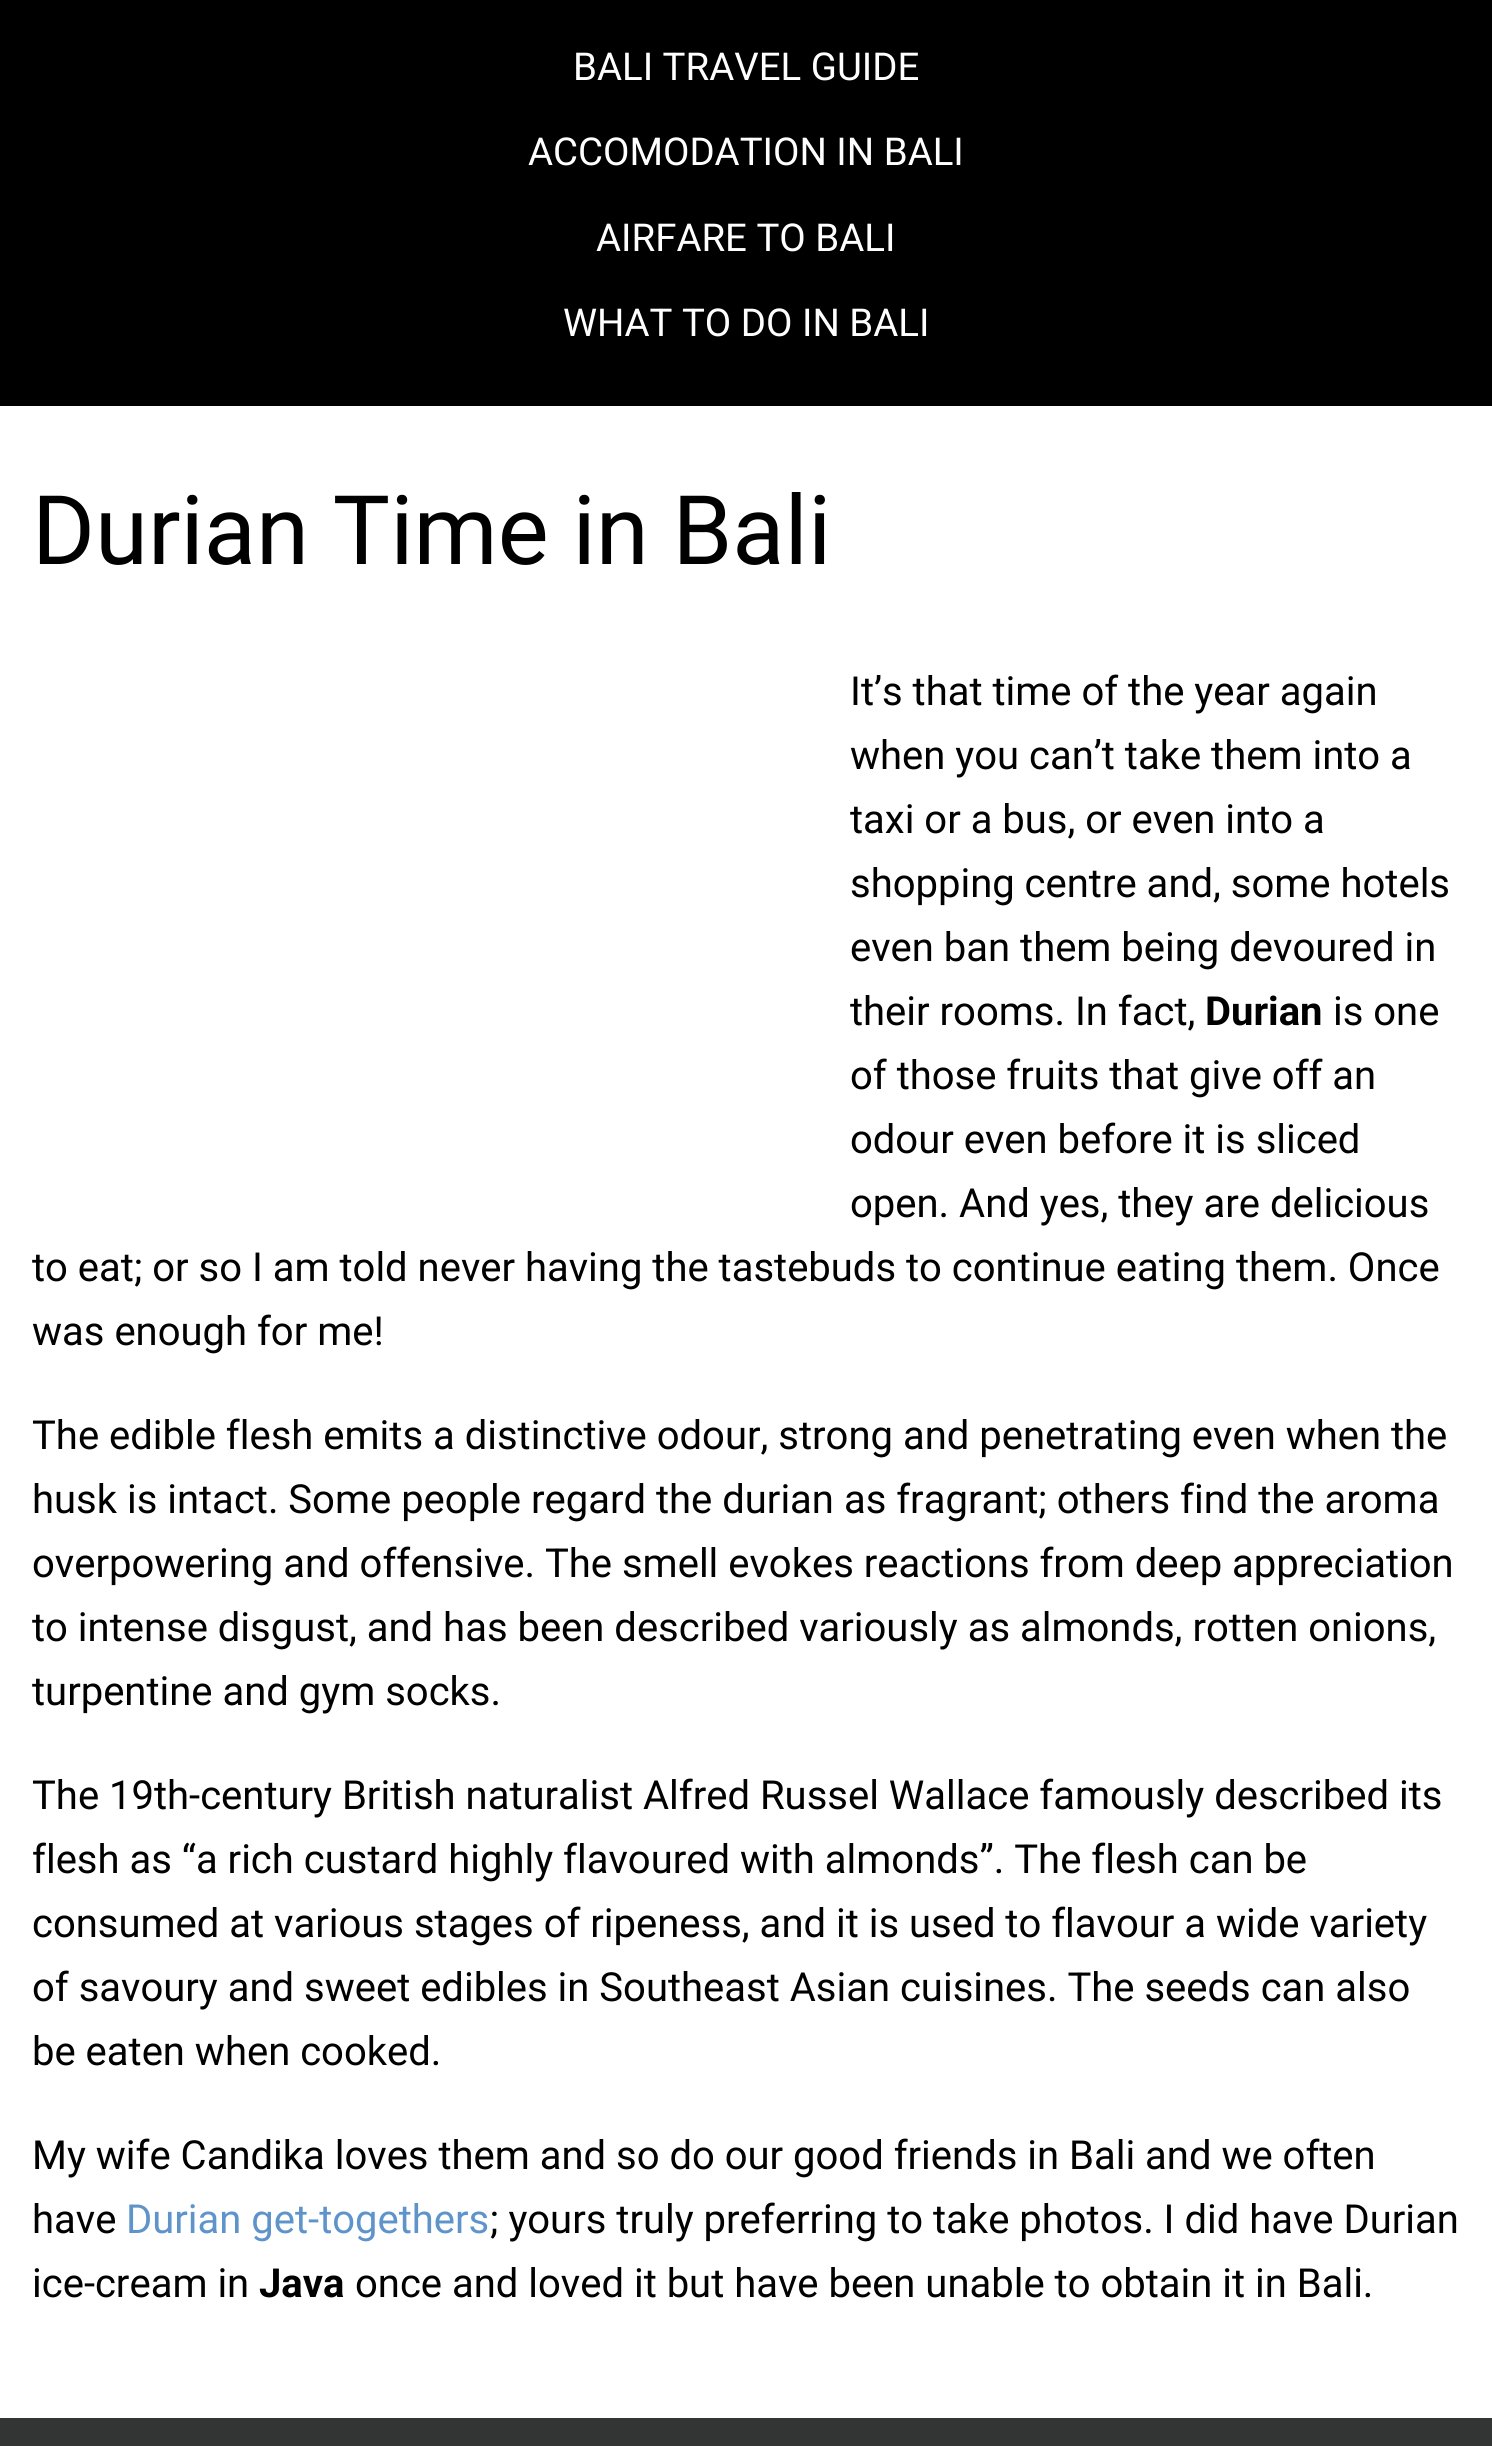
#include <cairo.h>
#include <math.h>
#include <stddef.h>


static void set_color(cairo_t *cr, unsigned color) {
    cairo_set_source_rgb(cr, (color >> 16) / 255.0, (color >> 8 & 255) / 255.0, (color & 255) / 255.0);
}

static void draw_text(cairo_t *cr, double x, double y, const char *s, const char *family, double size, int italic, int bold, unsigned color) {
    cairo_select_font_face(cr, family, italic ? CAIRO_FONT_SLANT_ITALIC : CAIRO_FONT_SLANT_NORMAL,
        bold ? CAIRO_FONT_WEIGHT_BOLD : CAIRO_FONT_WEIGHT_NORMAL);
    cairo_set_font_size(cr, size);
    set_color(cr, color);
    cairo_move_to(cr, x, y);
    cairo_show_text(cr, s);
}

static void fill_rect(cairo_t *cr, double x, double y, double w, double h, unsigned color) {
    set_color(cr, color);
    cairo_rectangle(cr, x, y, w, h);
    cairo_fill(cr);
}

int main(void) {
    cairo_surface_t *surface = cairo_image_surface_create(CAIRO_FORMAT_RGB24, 1492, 2446);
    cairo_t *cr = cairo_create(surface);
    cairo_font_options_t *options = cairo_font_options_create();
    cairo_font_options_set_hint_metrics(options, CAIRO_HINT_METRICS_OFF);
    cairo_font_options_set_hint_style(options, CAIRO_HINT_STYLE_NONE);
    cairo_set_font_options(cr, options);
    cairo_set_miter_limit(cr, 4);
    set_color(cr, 0xFFFFFF);
    cairo_paint(cr);
    fill_rect(cr, 0, 0, 1492, 406, 0x000000);
    draw_text(cr, 573, 80, "BALI TRAVEL GUIDE", "Roboto", 38.4, 0, 0, 0xFFFFFF);
    draw_text(cr, 528, 165, "ACCOMODATION IN BALI", "Roboto", 38.4, 0, 0, 0xFFFFFF);
    draw_text(cr, 596, 251, "AIRFARE TO BALI", "Roboto", 38.4, 0, 0, 0xFFFFFF);
    draw_text(cr, 563, 336, "WHAT TO DO IN BALI", "Roboto", 38.4, 0, 0, 0xFFFFFF);
    draw_text(cr, 32, 564, "Durian Time in Bali", "Roboto", 96, 0, 0, 0x000000);
    draw_text(cr, 850, 705, "It’s that time of the year again", "Roboto", 40, 0, 0, 0x000000);
    draw_text(cr, 850, 769, "when you can’t take them into a", "Roboto", 40, 0, 0, 0x000000);
    draw_text(cr, 850, 833, "taxi or a bus, or even into a", "Roboto", 40, 0, 0, 0x000000);
    draw_text(cr, 850, 897, "shopping centre and, some hotels", "Roboto", 40, 0, 0, 0x000000);
    draw_text(cr, 850, 961, "even ban them being devoured in", "Roboto", 40, 0, 0, 0x000000);
    draw_text(cr, 850, 1025, "their rooms. In fact,", "Roboto", 40, 0, 0, 0x000000);
    draw_text(cr, 1205, 1025, "Durian", "Roboto", 40, 0, 1, 0x000000);
    draw_text(cr, 1333, 1025, "is one", "Roboto", 40, 0, 0, 0x000000);
    draw_text(cr, 850, 1089, "of those fruits that give off an", "Roboto", 40, 0, 0, 0x000000);
    draw_text(cr, 850, 1153, "odour even before it is sliced", "Roboto", 40, 0, 0, 0x000000);
    draw_text(cr, 850, 1217, "open. And yes, they are delicious", "Roboto", 40, 0, 0, 0x000000);
    draw_text(cr, 32, 1281, "to eat; or so I am told never having the tastebuds to continue eating them. Once", "Roboto", 40, 0, 0, 0x000000);
    draw_text(cr, 32, 1345, "was enough for me!", "Roboto", 40, 0, 0, 0x000000);
    draw_text(cr, 32, 1449, "The edible flesh emits a distinctive odour, strong and penetrating even when the", "Roboto", 40, 0, 0, 0x000000);
    draw_text(cr, 32, 1513, "husk is intact. Some people regard the durian as fragrant; others find the aroma", "Roboto", 40, 0, 0, 0x000000);
    draw_text(cr, 32, 1577, "overpowering and offensive. The smell evokes reactions from deep appreciation", "Roboto", 40, 0, 0, 0x000000);
    draw_text(cr, 32, 1641, "to intense disgust, and has been described variously as almonds, rotten onions,", "Roboto", 40, 0, 0, 0x000000);
    draw_text(cr, 32, 1705, "turpentine and gym socks.", "Roboto", 40, 0, 0, 0x000000);
    draw_text(cr, 32, 1809, "The 19th-century British naturalist Alfred Russel Wallace famously described its", "Roboto", 40, 0, 0, 0x000000);
    draw_text(cr, 32, 1873, "flesh as “a rich custard highly flavoured with almonds”. The flesh can be", "Roboto", 40, 0, 0, 0x000000);
    draw_text(cr, 32, 1937, "consumed at various stages of ripeness, and it is used to flavour a wide variety", "Roboto", 40, 0, 0, 0x000000);
    draw_text(cr, 32, 2001, "of savoury and sweet edibles in Southeast Asian cuisines. The seeds can also", "Roboto", 40, 0, 0, 0x000000);
    draw_text(cr, 32, 2065, "be eaten when cooked.", "Roboto", 40, 0, 0, 0x000000);
    draw_text(cr, 32, 2169, "My wife Candika loves them and so do our good friends in Bali and we often", "Roboto", 40, 0, 0, 0x000000);
    draw_text(cr, 32, 2233, "have", "Roboto", 40, 0, 0, 0x000000);
    draw_text(cr, 126, 2233, "Durian get-togethers", "Roboto", 40, 0, 0, 0x5F94CB);
    draw_text(cr, 490, 2233, "; yours truly preferring to take photos. I did have Durian", "Roboto", 40, 0, 0, 0x000000);
    draw_text(cr, 32, 2297, "ice-cream in", "Roboto", 40, 0, 0, 0x000000);
    draw_text(cr, 259, 2297, "Java", "Roboto", 40, 0, 1, 0x000000);
    draw_text(cr, 355, 2297, "once and loved it but have been unable to obtain it in Bali.", "Roboto", 40, 0, 0, 0x000000);
    fill_rect(cr, 0, 2418, 1492, 28, 0x333434);
    cairo_surface_write_to_png(surface, "output.png");
    cairo_font_options_destroy(options);
    cairo_destroy(cr);
    cairo_surface_destroy(surface);
    return 0;
}
